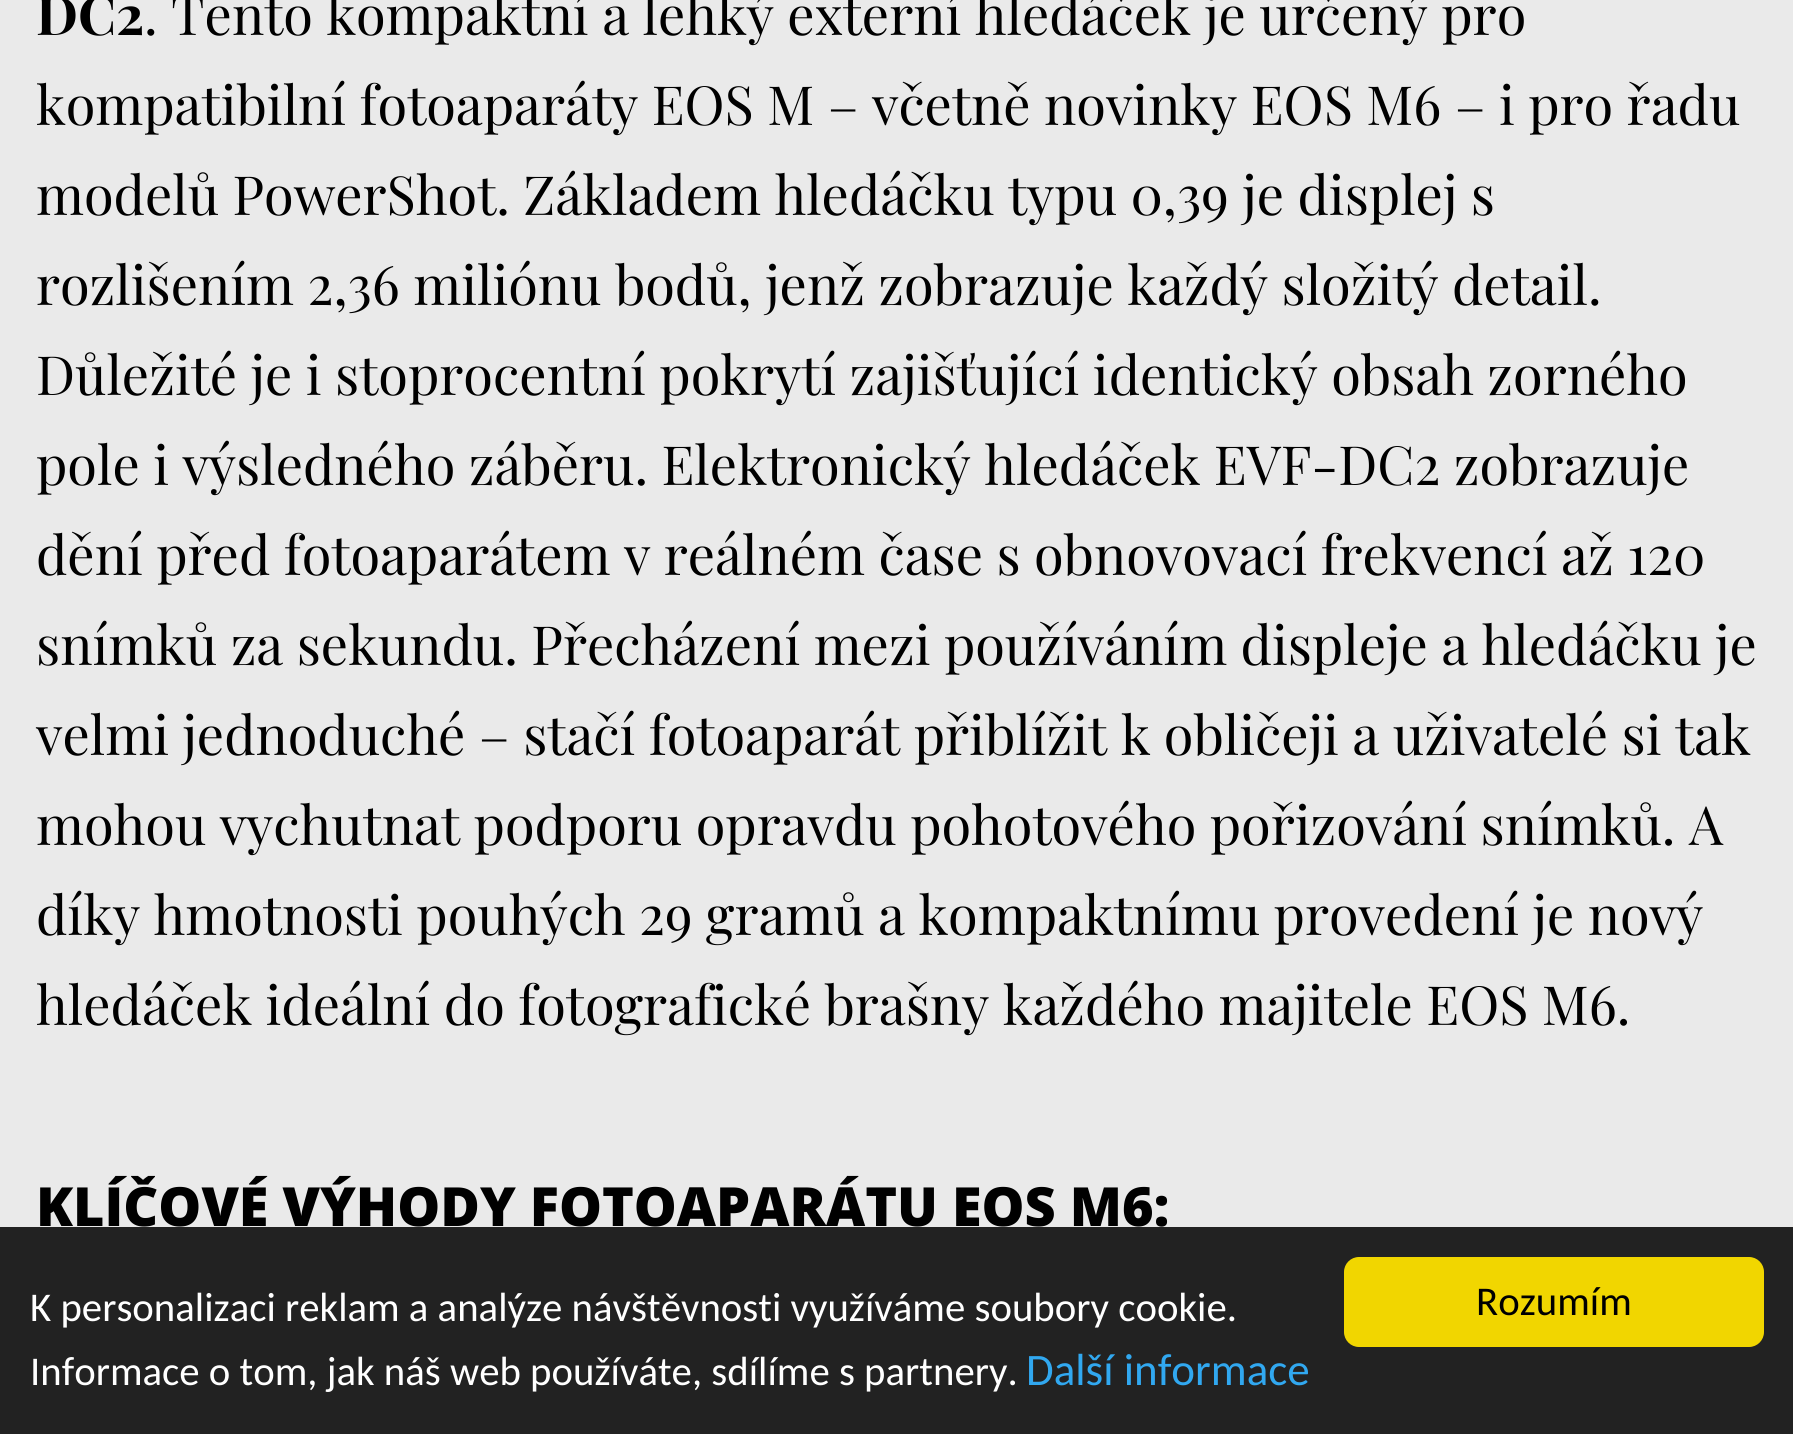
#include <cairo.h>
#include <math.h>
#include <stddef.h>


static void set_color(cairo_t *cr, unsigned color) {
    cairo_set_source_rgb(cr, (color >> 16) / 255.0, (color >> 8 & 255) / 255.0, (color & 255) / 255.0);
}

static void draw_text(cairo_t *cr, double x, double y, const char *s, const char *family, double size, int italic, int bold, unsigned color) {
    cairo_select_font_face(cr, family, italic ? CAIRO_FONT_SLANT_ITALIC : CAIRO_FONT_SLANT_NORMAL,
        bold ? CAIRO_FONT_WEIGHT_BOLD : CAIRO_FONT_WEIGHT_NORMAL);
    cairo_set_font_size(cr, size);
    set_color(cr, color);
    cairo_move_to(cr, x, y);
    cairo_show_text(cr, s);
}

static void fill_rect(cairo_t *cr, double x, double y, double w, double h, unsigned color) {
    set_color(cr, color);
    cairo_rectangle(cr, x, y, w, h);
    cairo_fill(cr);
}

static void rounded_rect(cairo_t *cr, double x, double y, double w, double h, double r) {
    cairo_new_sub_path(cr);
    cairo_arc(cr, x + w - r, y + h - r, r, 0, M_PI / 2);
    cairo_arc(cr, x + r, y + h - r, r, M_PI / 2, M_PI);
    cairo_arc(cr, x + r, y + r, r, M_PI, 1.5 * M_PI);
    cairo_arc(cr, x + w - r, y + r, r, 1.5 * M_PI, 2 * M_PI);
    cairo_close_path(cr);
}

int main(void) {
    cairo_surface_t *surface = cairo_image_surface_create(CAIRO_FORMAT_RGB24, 1793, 1434);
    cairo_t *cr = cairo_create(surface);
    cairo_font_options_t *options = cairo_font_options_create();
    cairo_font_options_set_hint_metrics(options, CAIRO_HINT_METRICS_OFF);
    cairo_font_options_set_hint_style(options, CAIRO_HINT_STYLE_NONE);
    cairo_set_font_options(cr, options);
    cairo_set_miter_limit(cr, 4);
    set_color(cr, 0xEAEAEA);
    cairo_paint(cr);
    draw_text(cr, 36, 35, "DC2", "Playfair Display", 54, 0, 1, 0x000000);
    draw_text(cr, 144, 35, ". Tento kompaktní a lehký externí hledáček je určený pro", "Playfair Display", 54, 0, 0, 0x000000);
    draw_text(cr, 36, 125, "kompatibilní fotoaparáty EOS M – včetně novinky EOS M6 – i pro řadu", "Playfair Display", 54, 0, 0, 0x000000);
    draw_text(cr, 36, 215, "modelů PowerShot. Základem hledáčku typu 0,39 je displej s", "Playfair Display", 54, 0, 0, 0x000000);
    draw_text(cr, 36, 305, "rozlišením 2,36 miliónu bodů, jenž zobrazuje každý složitý detail.", "Playfair Display", 54, 0, 0, 0x000000);
    draw_text(cr, 36, 395, "Důležité je i stoprocentní pokrytí zajišťující identický obsah zorného", "Playfair Display", 54, 0, 0, 0x000000);
    draw_text(cr, 36, 485, "pole i výsledného záběru. Elektronický hledáček EVF-DC2 zobrazuje", "Playfair Display", 54, 0, 0, 0x000000);
    draw_text(cr, 36, 575, "dění před fotoaparátem v reálném čase s obnovovací frekvencí až 120", "Playfair Display", 54, 0, 0, 0x000000);
    draw_text(cr, 36, 665, "snímků za sekundu. Přecházení mezi používáním displeje a hledáčku je", "Playfair Display", 54, 0, 0, 0x000000);
    draw_text(cr, 36, 755, "velmi jednoduché – stačí fotoaparát přiblížit k obličeji a uživatelé si tak", "Playfair Display", 54, 0, 0, 0x000000);
    draw_text(cr, 36, 845, "mohou vychutnat podporu opravdu pohotového pořizování snímků. A", "Playfair Display", 54, 0, 0, 0x000000);
    draw_text(cr, 36, 935, "díky hmotnosti pouhých 29 gramů a kompaktnímu provedení je nový", "Playfair Display", 54, 0, 0, 0x000000);
    draw_text(cr, 36, 1025, "hledáček ideální do fotografické brašny každého majitele EOS M6.", "Playfair Display", 54, 0, 0, 0x000000);
    draw_text(cr, 36, 1226, "KLÍČOVÉ VÝHODY FOTOAPARÁTU EOS M6:", "Open Sans ExtraBold", 54, 0, 0, 0x000000);
    fill_rect(cr, 0, 1227, 1793, 207, 0x222222);
    draw_text(cr, 30, 1321, "K personalizaci reklam a analýze návštěvnosti využíváme soubory cookie.", "Carlito", 40.8, 0, 0, 0xFFFFFF);
    draw_text(cr, 30, 1385, "Informace o tom, jak náš web používáte, sdílíme s partnery.", "Carlito", 40.8, 0, 0, 0xFFFFFF);
    draw_text(cr, 1026, 1385, "Další informace", "Carlito", 45, 0, 0, 0x31A8F0);
    set_color(cr, 0xF1D600);
    rounded_rect(cr, 1344, 1257, 420, 90, 15);
    cairo_fill(cr);
    draw_text(cr, 1476, 1315, "Rozumím", "Carlito", 40.8, 0, 0, 0x000000);
    cairo_surface_write_to_png(surface, "output.png");
    cairo_font_options_destroy(options);
    cairo_destroy(cr);
    cairo_surface_destroy(surface);
    return 0;
}
